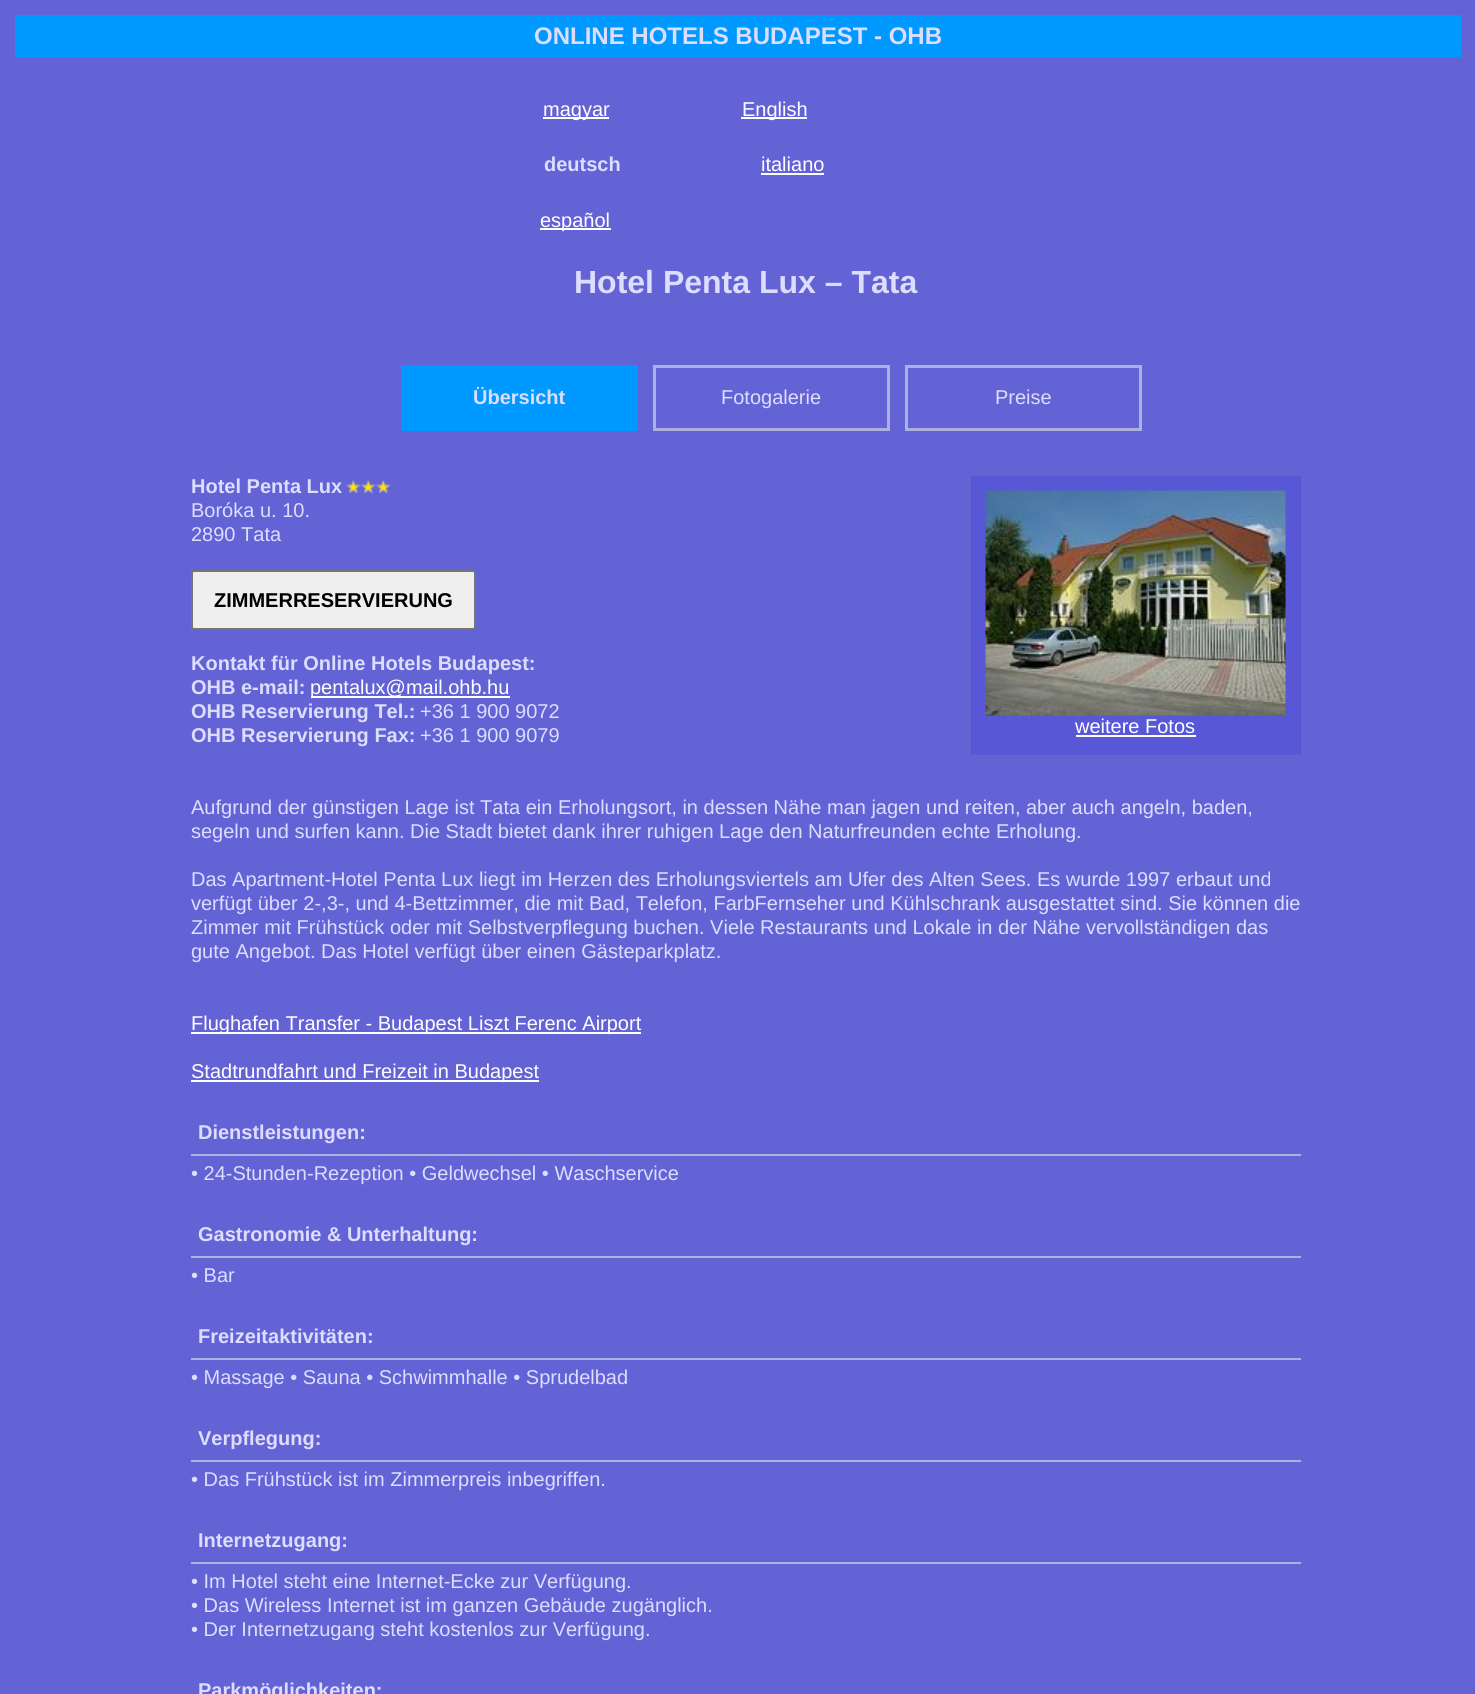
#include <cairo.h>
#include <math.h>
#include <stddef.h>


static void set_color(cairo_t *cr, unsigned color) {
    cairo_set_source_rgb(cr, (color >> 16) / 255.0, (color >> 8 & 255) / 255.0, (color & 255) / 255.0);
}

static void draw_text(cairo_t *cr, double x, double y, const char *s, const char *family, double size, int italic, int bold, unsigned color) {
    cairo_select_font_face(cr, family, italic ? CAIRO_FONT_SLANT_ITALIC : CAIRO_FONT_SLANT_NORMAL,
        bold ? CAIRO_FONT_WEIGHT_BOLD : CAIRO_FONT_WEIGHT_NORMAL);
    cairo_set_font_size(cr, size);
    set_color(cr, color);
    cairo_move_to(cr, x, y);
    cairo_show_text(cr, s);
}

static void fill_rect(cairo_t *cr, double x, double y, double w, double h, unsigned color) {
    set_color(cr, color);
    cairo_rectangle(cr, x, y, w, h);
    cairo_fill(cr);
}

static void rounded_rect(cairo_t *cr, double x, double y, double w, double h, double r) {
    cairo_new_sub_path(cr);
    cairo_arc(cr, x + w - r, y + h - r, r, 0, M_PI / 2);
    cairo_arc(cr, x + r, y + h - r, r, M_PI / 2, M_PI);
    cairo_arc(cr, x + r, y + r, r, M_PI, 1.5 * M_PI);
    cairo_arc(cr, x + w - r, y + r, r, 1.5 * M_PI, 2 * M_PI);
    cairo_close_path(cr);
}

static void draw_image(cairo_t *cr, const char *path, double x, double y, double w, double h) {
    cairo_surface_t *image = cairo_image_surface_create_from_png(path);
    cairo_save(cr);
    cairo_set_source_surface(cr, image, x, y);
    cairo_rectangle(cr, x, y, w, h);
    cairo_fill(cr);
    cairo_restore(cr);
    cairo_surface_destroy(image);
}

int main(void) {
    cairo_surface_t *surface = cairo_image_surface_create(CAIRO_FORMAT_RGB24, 1475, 1694);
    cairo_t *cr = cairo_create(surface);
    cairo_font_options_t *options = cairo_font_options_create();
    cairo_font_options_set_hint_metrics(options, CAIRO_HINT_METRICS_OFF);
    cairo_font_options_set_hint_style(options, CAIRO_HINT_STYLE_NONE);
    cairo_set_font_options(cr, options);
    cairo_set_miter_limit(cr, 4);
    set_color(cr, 0x6363D6);
    cairo_paint(cr);
    fill_rect(cr, 15, 15, 1446, 42, 0x0099FF);
    draw_text(cr, 534, 44, "ONLINE HOTELS BUDAPEST - OHB", "Liberation Sans", 24, 0, 1, 0xDDDDFF);
    fill_rect(cr, 543, 117, 66, 2, 0xFFFFFF);
    draw_text(cr, 543, 116, "magyar", "Liberation Sans", 20, 0, 0, 0xFFFFFF);
    fill_rect(cr, 741, 117, 66, 2, 0xFFFFFF);
    draw_text(cr, 742, 116, "English", "Liberation Sans", 20, 0, 0, 0xFFFFFF);
    draw_text(cr, 544, 171, "deutsch", "Liberation Sans", 20, 0, 1, 0xDDDDFF);
    draw_text(cr, 761, 171, "italiano", "Liberation Sans", 20, 0, 0, 0xFFFFFF);
    fill_rect(cr, 761, 173, 63, 2, 0xFFFFFF);
    fill_rect(cr, 540, 228, 71, 2, 0xFFFFFF);
    draw_text(cr, 540, 227, "español", "Liberation Sans", 20, 0, 0, 0xFFFFFF);
    draw_text(cr, 574, 293, "Hotel Penta Lux – Tata", "Liberation Sans", 32, 0, 1, 0xDDDDFF);
    fill_rect(cr, 401, 365, 237, 66, 0x0099FF);
    draw_text(cr, 473, 404, "Übersicht", "Liberation Sans", 20, 0, 1, 0xDDDDFF);
    cairo_rectangle(cr, 654.5, 366.5, 234, 63);
    set_color(cr, 0xB0B0E0);
    cairo_set_line_width(cr, 3);
    cairo_stroke(cr);
    draw_text(cr, 721, 404, "Fotogalerie", "Liberation Sans", 20, 0, 0, 0xDDDDFF);
    cairo_rectangle(cr, 906.5, 366.5, 234, 63);
    set_color(cr, 0xB0B0E0);
    cairo_stroke(cr);
    draw_text(cr, 995, 404, "Preise", "Liberation Sans", 20, 0, 0, 0xDDDDFF);
    draw_text(cr, 191, 493, "Hotel Penta Lux", "Liberation Sans", 20, 0, 1, 0xDDDDFF);
    draw_image(cr, "assets/img1.png", 346, 480, 44, 14);
    draw_text(cr, 191, 517, "Boróka u. 10.", "Liberation Sans", 20, 0, 0, 0xDDDDFF);
    draw_text(cr, 191, 541, "2890 Tata", "Liberation Sans", 20, 0, 0, 0xDDDDFF);
    set_color(cr, 0xEFEFEF);
    rounded_rect(cr, 192, 571, 283, 58, 2);
    cairo_fill_preserve(cr);
    set_color(cr, 0x767676);
    cairo_set_line_width(cr, 2);
    cairo_stroke(cr);
    draw_text(cr, 214, 607, "ZIMMERRESERVIERUNG", "Liberation Sans", 20, 0, 1, 0x000000);
    draw_text(cr, 191, 670, "Kontakt für Online Hotels Budapest:", "Liberation Sans", 20, 0, 1, 0xDDDDFF);
    draw_text(cr, 191, 694, "OHB e-mail:", "Liberation Sans", 20, 0, 1, 0xDDDDFF);
    fill_rect(cr, 311, 696, 199, 2, 0xFFFFFF);
    draw_text(cr, 310, 694, "pentalux@mail.ohb.hu", "Liberation Sans", 20, 0, 0, 0xFFFFFF);
    draw_text(cr, 191, 718, "OHB Reservierung Tel.:", "Liberation Sans", 20, 0, 1, 0xDDDDFF);
    draw_text(cr, 420, 718, "+36 1 900 9072", "Liberation Sans", 20, 0, 0, 0xDDDDFF);
    draw_text(cr, 191, 742, "OHB Reservierung Fax:", "Liberation Sans", 20, 0, 1, 0xDDDDFF);
    draw_text(cr, 420, 742, "+36 1 900 9079", "Liberation Sans", 20, 0, 0, 0xDDDDFF);
    fill_rect(cr, 971, 476, 330, 279, 0x5858D6);
    draw_image(cr, "assets/img2.png", 985, 490, 301, 226);
    draw_text(cr, 1075, 733, "weitere Fotos", "Liberation Sans", 20, 0, 0, 0xFFFFFF);
    fill_rect(cr, 1076, 735, 120, 2, 0xFFFFFF);
    draw_text(cr, 191, 814, "Aufgrund der günstigen Lage ist Tata ein Erholungsort, in dessen Nähe man jagen und reiten, aber auch angeln, baden,", "Liberation Sans", 20, 0, 0, 0xDDDDFF);
    draw_text(cr, 191, 838, "segeln und surfen kann. Die Stadt bietet dank ihrer ruhigen Lage den Naturfreunden echte Erholung.", "Liberation Sans", 20, 0, 0, 0xDDDDFF);
    draw_text(cr, 191, 886, "Das Apartment-Hotel Penta Lux liegt im Herzen des Erholungsviertels am Ufer des Alten Sees. Es wurde 1997 erbaut und", "Liberation Sans", 20, 0, 0, 0xDDDDFF);
    draw_text(cr, 191, 910, "verfügt über 2-,3-, und 4-Bettzimmer, die mit Bad, Telefon, FarbFernseher und Kühlschrank ausgestattet sind. Sie können die", "Liberation Sans", 20, 0, 0, 0xDDDDFF);
    draw_text(cr, 191, 934, "Zimmer mit Frühstück oder mit Selbstverpflegung buchen. Viele Restaurants und Lokale in der Nähe vervollständigen das", "Liberation Sans", 20, 0, 0, 0xDDDDFF);
    draw_text(cr, 191, 958, "gute Angebot. Das Hotel verfügt über einen Gästeparkplatz.", "Liberation Sans", 20, 0, 0, 0xDDDDFF);
    fill_rect(cr, 191, 1032, 450, 2, 0xFFFFFF);
    draw_text(cr, 191, 1030, "Flughafen Transfer - Budapest Liszt Ferenc Airport", "Liberation Sans", 20, 0, 0, 0xFFFFFF);
    fill_rect(cr, 191, 1080, 348, 2, 0xFFFFFF);
    draw_text(cr, 191, 1078, "Stadtrundfahrt und Freizeit in Budapest", "Liberation Sans", 20, 0, 0, 0xFFFFFF);
    fill_rect(cr, 191, 1154, 1110, 2, 0xB0B0E0);
    draw_text(cr, 198, 1139, "Dienstleistungen:", "Liberation Sans", 20, 0, 1, 0xDDDDFF);
    draw_text(cr, 191, 1180, "• 24-Stunden-Rezeption • Geldwechsel • Waschservice", "Liberation Sans", 20, 0, 0, 0xDDDDFF);
    fill_rect(cr, 191, 1256, 1110, 2, 0xB0B0E0);
    draw_text(cr, 198, 1241, "Gastronomie & Unterhaltung:", "Liberation Sans", 20, 0, 1, 0xDDDDFF);
    draw_text(cr, 191, 1282, "• Bar", "Liberation Sans", 20, 0, 0, 0xDDDDFF);
    fill_rect(cr, 191, 1358, 1110, 2, 0xB0B0E0);
    draw_text(cr, 198, 1343, "Freizeitaktivitäten:", "Liberation Sans", 20, 0, 1, 0xDDDDFF);
    draw_text(cr, 191, 1384, "• Massage • Sauna • Schwimmhalle • Sprudelbad", "Liberation Sans", 20, 0, 0, 0xDDDDFF);
    fill_rect(cr, 191, 1460, 1110, 2, 0xB0B0E0);
    draw_text(cr, 198, 1445, "Verpflegung:", "Liberation Sans", 20, 0, 1, 0xDDDDFF);
    draw_text(cr, 191, 1486, "• Das Frühstück ist im Zimmerpreis inbegriffen.", "Liberation Sans", 20, 0, 0, 0xDDDDFF);
    fill_rect(cr, 191, 1562, 1110, 2, 0xB0B0E0);
    draw_text(cr, 198, 1547, "Internetzugang:", "Liberation Sans", 20, 0, 1, 0xDDDDFF);
    draw_text(cr, 191, 1588, "• Im Hotel steht eine Internet-Ecke zur Verfügung.", "Liberation Sans", 20, 0, 0, 0xDDDDFF);
    draw_text(cr, 191, 1612, "• Das Wireless Internet ist im ganzen Gebäude zugänglich.", "Liberation Sans", 20, 0, 0, 0xDDDDFF);
    draw_text(cr, 191, 1636, "• Der Internetzugang steht kostenlos zur Verfügung.", "Liberation Sans", 20, 0, 0, 0xDDDDFF);
    draw_text(cr, 198, 1697, "Parkmöglichkeiten:", "Liberation Sans", 20, 0, 1, 0xDDDDFF);
    cairo_surface_write_to_png(surface, "output.png");
    cairo_font_options_destroy(options);
    cairo_destroy(cr);
    cairo_surface_destroy(surface);
    return 0;
}
